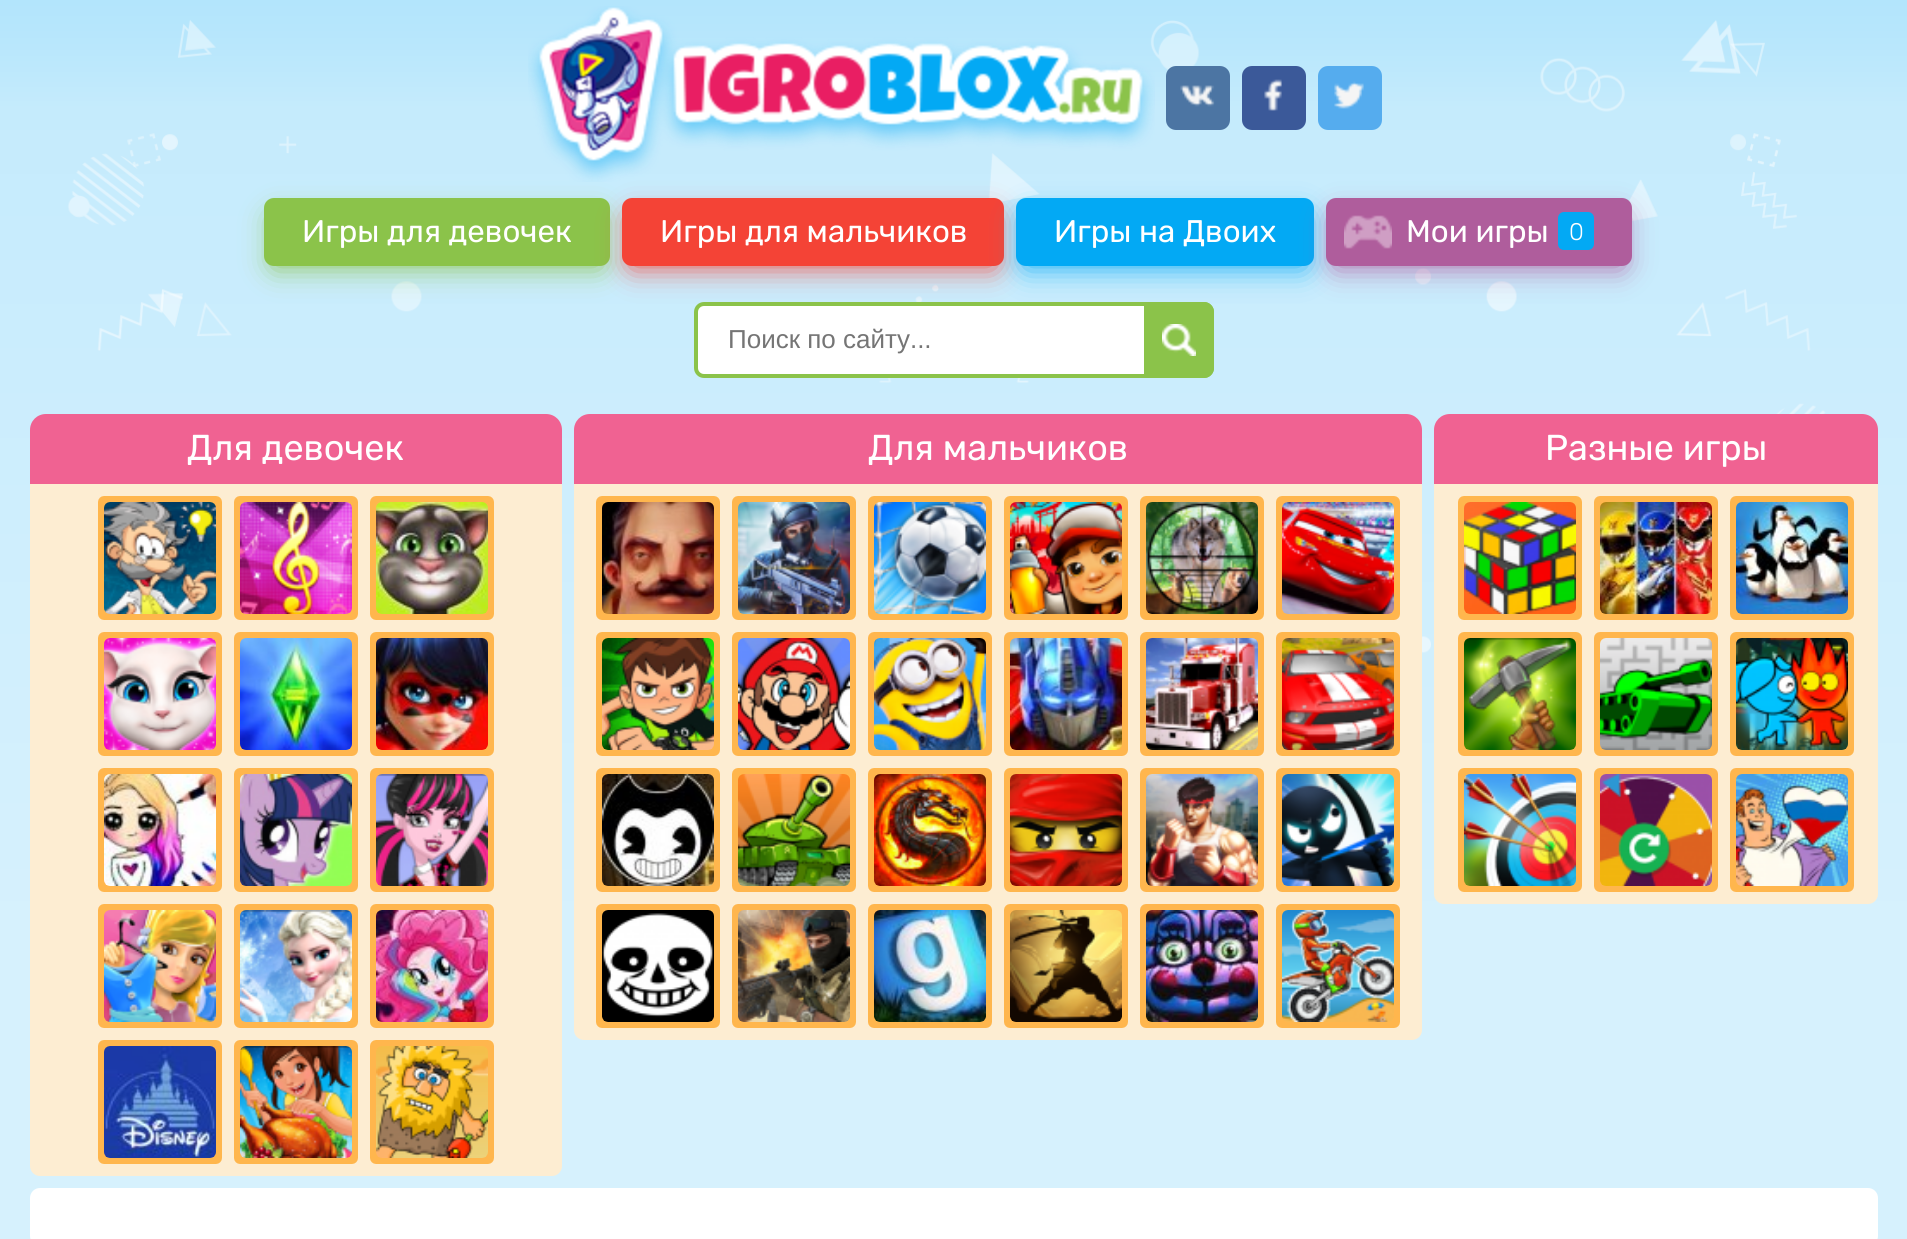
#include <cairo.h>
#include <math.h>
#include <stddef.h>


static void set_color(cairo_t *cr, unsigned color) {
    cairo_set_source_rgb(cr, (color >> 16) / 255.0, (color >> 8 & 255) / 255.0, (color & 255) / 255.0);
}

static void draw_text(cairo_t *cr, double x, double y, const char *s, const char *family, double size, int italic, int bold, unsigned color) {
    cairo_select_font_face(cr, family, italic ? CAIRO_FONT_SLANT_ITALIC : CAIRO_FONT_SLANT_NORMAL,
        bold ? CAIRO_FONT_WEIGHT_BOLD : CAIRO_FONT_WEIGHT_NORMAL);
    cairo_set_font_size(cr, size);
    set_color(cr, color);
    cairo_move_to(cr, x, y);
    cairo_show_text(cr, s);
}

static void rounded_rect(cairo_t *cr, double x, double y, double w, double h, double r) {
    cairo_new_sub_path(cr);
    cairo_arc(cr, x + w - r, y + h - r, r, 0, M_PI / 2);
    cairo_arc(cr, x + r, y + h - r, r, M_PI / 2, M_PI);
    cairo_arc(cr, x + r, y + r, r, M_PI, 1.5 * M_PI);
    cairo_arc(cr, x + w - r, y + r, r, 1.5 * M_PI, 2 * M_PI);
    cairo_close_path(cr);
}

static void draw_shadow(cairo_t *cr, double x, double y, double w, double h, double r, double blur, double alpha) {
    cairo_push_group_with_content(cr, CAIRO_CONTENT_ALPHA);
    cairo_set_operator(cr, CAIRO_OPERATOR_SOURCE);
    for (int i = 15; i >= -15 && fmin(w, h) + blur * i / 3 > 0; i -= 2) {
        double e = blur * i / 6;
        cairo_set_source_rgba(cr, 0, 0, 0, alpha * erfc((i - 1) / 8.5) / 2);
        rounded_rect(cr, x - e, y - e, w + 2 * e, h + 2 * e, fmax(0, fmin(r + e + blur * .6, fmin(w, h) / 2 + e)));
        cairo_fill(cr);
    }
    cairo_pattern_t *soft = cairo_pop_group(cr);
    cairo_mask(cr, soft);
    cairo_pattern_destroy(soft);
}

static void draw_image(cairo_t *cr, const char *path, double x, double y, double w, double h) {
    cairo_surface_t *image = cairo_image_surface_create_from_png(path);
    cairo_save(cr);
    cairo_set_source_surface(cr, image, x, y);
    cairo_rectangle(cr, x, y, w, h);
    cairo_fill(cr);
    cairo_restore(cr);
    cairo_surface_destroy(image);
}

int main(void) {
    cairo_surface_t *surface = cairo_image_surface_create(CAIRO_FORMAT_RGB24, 1907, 1239);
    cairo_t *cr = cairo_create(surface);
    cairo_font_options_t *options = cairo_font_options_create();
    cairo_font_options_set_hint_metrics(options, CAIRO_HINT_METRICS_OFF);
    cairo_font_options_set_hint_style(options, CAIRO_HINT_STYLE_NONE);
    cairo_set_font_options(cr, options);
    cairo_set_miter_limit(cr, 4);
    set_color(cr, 0xD6F1FD);
    cairo_paint(cr);
    draw_image(cr, "assets/img1.png", 0, 0, 1907, 901);
    draw_image(cr, "assets/img2.png", 528, 6, 627, 176);
    set_color(cr, 0x4C75A3);
    rounded_rect(cr, 1166, 66, 64, 64, 10);
    cairo_fill(cr);
    draw_image(cr, "assets/img3.png", 1180, 85, 35, 22);
    set_color(cr, 0x3B5999);
    rounded_rect(cr, 1242, 66, 64, 64, 10);
    cairo_fill(cr);
    draw_image(cr, "assets/img4.png", 1264, 79, 18, 32);
    set_color(cr, 0x55ACEE);
    rounded_rect(cr, 1318, 66, 64, 64, 10);
    cairo_fill(cr);
    draw_image(cr, "assets/img5.png", 1334, 81, 30, 28);
    set_color(cr, 0x8BC34A);
    draw_shadow(cr, 274, 218, 326, 48, 0, 15, 1);
    set_color(cr, 0x8BC34A);
    rounded_rect(cr, 264, 198, 346, 68, 10);
    cairo_fill(cr);
    draw_text(cr, 302, 242, "Игры для девочек", "Rubik", 31.25, 0, 0, 0xFFFFFF);
    set_color(cr, 0xF44336);
    draw_shadow(cr, 632, 218, 362, 48, 0, 15, 1);
    set_color(cr, 0xF44336);
    rounded_rect(cr, 622, 198, 382, 68, 10);
    cairo_fill(cr);
    draw_text(cr, 660, 242, "Игры для мальчиков", "Rubik", 31.25, 0, 0, 0xFFFFFF);
    set_color(cr, 0x03A9F4);
    draw_shadow(cr, 1026, 218, 278, 48, 0, 15, 1);
    set_color(cr, 0x03A9F4);
    rounded_rect(cr, 1016, 198, 298, 68, 10);
    cairo_fill(cr);
    draw_text(cr, 1054, 242, "Игры на Двоих", "Rubik", 31.25, 0, 0, 0xFFFFFF);
    set_color(cr, 0xAF5D9C);
    draw_shadow(cr, 1336, 218, 286, 48, 0, 15, 1);
    set_color(cr, 0xAF5D9C);
    rounded_rect(cr, 1326, 198, 306, 68, 10);
    cairo_fill(cr);
    draw_image(cr, "assets/img6.png", 1344, 215, 48, 34);
    draw_text(cr, 1406, 242, "Мои игры", "Rubik", 31.25, 0, 0, 0xFFFFFF);
    set_color(cr, 0x03A9F4);
    rounded_rect(cr, 1558, 212, 36, 38, 6);
    cairo_fill(cr);
    draw_text(cr, 1569, 240, "0", "Rubik Light", 24, 0, 0, 0xFFFFFF);
    rounded_rect(cr, 696, 304, 516, 72, 8);
    cairo_fill_preserve(cr);
    set_color(cr, 0x8BC34A);
    cairo_set_line_width(cr, 4);
    cairo_stroke(cr);
    draw_text(cr, 728, 348, "Поиск по сайту...", "Liberation Sans", 26, 0, 0, 0x757575);
    set_color(cr, 0x8BC34A);
    cairo_new_path(cr);
    cairo_move_to(cr, 1144, 302);
    cairo_line_to(cr, 1204, 302);
    cairo_curve_to(cr, 1209.5, 302, 1214, 306.5, 1214, 312);
    cairo_line_to(cr, 1214, 368);
    cairo_curve_to(cr, 1214, 373.5, 1209.5, 378, 1204, 378);
    cairo_line_to(cr, 1144, 378);
    cairo_close_path(cr);
    cairo_fill(cr);
    draw_image(cr, "assets/img7.png", 1162, 324, 34, 32);
    set_color(cr, 0xF06292);
    cairo_new_path(cr);
    cairo_move_to(cr, 46, 414);
    cairo_line_to(cr, 546, 414);
    cairo_curve_to(cr, 555, 414, 562, 421, 562, 430);
    cairo_line_to(cr, 562, 484);
    cairo_line_to(cr, 30, 484);
    cairo_line_to(cr, 30, 430);
    cairo_curve_to(cr, 30, 421, 37, 414, 46, 414);
    cairo_close_path(cr);
    cairo_fill(cr);
    draw_text(cr, 187, 460, "Для девочек", "Rubik", 36, 0, 0, 0xFFFFFF);
    set_color(cr, 0xFDEDD2);
    cairo_new_path(cr);
    cairo_move_to(cr, 30, 484);
    cairo_line_to(cr, 562, 484);
    cairo_line_to(cr, 562, 1166);
    cairo_curve_to(cr, 562, 1171.5, 557.5, 1176, 552, 1176);
    cairo_line_to(cr, 40, 1176);
    cairo_curve_to(cr, 34.5, 1176, 30, 1171.5, 30, 1166);
    cairo_close_path(cr);
    cairo_fill(cr);
    set_color(cr, 0xFFB64D);
    rounded_rect(cr, 101, 499, 118, 118, 3);
    cairo_fill_preserve(cr);
    cairo_set_line_width(cr, 6);
    cairo_stroke(cr);
    draw_image(cr, "assets/img8.png", 104, 502, 112, 112);
    rounded_rect(cr, 237, 499, 118, 118, 3);
    cairo_fill_preserve(cr);
    cairo_stroke(cr);
    draw_image(cr, "assets/img9.png", 240, 502, 112, 112);
    rounded_rect(cr, 373, 499, 118, 118, 3);
    cairo_fill_preserve(cr);
    cairo_stroke(cr);
    draw_image(cr, "assets/img10.png", 376, 502, 112, 112);
    rounded_rect(cr, 101, 635, 118, 118, 3);
    cairo_fill_preserve(cr);
    cairo_stroke(cr);
    draw_image(cr, "assets/img11.png", 104, 638, 112, 112);
    rounded_rect(cr, 237, 635, 118, 118, 3);
    cairo_fill_preserve(cr);
    cairo_stroke(cr);
    draw_image(cr, "assets/img12.png", 240, 638, 112, 112);
    rounded_rect(cr, 373, 635, 118, 118, 3);
    cairo_fill_preserve(cr);
    cairo_stroke(cr);
    draw_image(cr, "assets/img13.png", 376, 638, 112, 112);
    rounded_rect(cr, 101, 771, 118, 118, 3);
    cairo_fill_preserve(cr);
    cairo_stroke(cr);
    draw_image(cr, "assets/img14.png", 104, 774, 112, 112);
    rounded_rect(cr, 237, 771, 118, 118, 3);
    cairo_fill_preserve(cr);
    cairo_stroke(cr);
    draw_image(cr, "assets/img15.png", 240, 774, 112, 112);
    rounded_rect(cr, 373, 771, 118, 118, 3);
    cairo_fill_preserve(cr);
    cairo_stroke(cr);
    draw_image(cr, "assets/img16.png", 376, 774, 112, 112);
    rounded_rect(cr, 101, 907, 118, 118, 3);
    cairo_fill_preserve(cr);
    cairo_stroke(cr);
    draw_image(cr, "assets/img17.png", 104, 910, 112, 112);
    rounded_rect(cr, 237, 907, 118, 118, 3);
    cairo_fill_preserve(cr);
    cairo_stroke(cr);
    draw_image(cr, "assets/img18.png", 240, 910, 112, 112);
    rounded_rect(cr, 373, 907, 118, 118, 3);
    cairo_fill_preserve(cr);
    cairo_stroke(cr);
    draw_image(cr, "assets/img19.png", 376, 910, 112, 112);
    rounded_rect(cr, 101, 1043, 118, 118, 3);
    cairo_fill_preserve(cr);
    cairo_stroke(cr);
    draw_image(cr, "assets/img20.png", 104, 1046, 112, 112);
    rounded_rect(cr, 237, 1043, 118, 118, 3);
    cairo_fill_preserve(cr);
    cairo_stroke(cr);
    draw_image(cr, "assets/img21.png", 240, 1046, 112, 112);
    rounded_rect(cr, 373, 1043, 118, 118, 3);
    cairo_fill_preserve(cr);
    cairo_stroke(cr);
    draw_image(cr, "assets/img22.png", 376, 1046, 112, 112);
    set_color(cr, 0xF06292);
    cairo_new_path(cr);
    cairo_move_to(cr, 590, 414);
    cairo_line_to(cr, 1406, 414);
    cairo_curve_to(cr, 1415, 414, 1422, 421, 1422, 430);
    cairo_line_to(cr, 1422, 484);
    cairo_line_to(cr, 574, 484);
    cairo_line_to(cr, 574, 430);
    cairo_curve_to(cr, 574, 421, 581, 414, 590, 414);
    cairo_close_path(cr);
    cairo_fill(cr);
    draw_text(cr, 868, 460, "Для мальчиков", "Rubik", 36, 0, 0, 0xFFFFFF);
    set_color(cr, 0xFDEDD2);
    cairo_new_path(cr);
    cairo_move_to(cr, 574, 484);
    cairo_line_to(cr, 1422, 484);
    cairo_line_to(cr, 1422, 1030);
    cairo_curve_to(cr, 1422, 1035.5, 1417.5, 1040, 1412, 1040);
    cairo_line_to(cr, 584, 1040);
    cairo_curve_to(cr, 578.5, 1040, 574, 1035.5, 574, 1030);
    cairo_close_path(cr);
    cairo_fill(cr);
    set_color(cr, 0xFFB64D);
    rounded_rect(cr, 599, 499, 118, 118, 3);
    cairo_fill_preserve(cr);
    cairo_stroke(cr);
    draw_image(cr, "assets/img23.png", 602, 502, 112, 112);
    rounded_rect(cr, 735, 499, 118, 118, 3);
    cairo_fill_preserve(cr);
    cairo_stroke(cr);
    draw_image(cr, "assets/img24.png", 738, 502, 112, 112);
    rounded_rect(cr, 871, 499, 118, 118, 3);
    cairo_fill_preserve(cr);
    cairo_stroke(cr);
    draw_image(cr, "assets/img25.png", 874, 502, 112, 112);
    rounded_rect(cr, 1007, 499, 118, 118, 3);
    cairo_fill_preserve(cr);
    cairo_stroke(cr);
    draw_image(cr, "assets/img26.png", 1010, 502, 112, 112);
    rounded_rect(cr, 1143, 499, 118, 118, 3);
    cairo_fill_preserve(cr);
    cairo_stroke(cr);
    draw_image(cr, "assets/img27.png", 1146, 502, 112, 112);
    rounded_rect(cr, 1279, 499, 118, 118, 3);
    cairo_fill_preserve(cr);
    cairo_stroke(cr);
    draw_image(cr, "assets/img28.png", 1282, 502, 112, 112);
    rounded_rect(cr, 599, 635, 118, 118, 3);
    cairo_fill_preserve(cr);
    cairo_stroke(cr);
    draw_image(cr, "assets/img29.png", 602, 638, 112, 112);
    rounded_rect(cr, 735, 635, 118, 118, 3);
    cairo_fill_preserve(cr);
    cairo_stroke(cr);
    draw_image(cr, "assets/img30.png", 738, 638, 112, 112);
    rounded_rect(cr, 871, 635, 118, 118, 3);
    cairo_fill_preserve(cr);
    cairo_stroke(cr);
    draw_image(cr, "assets/img31.png", 874, 638, 112, 112);
    rounded_rect(cr, 1007, 635, 118, 118, 3);
    cairo_fill_preserve(cr);
    cairo_stroke(cr);
    draw_image(cr, "assets/img32.png", 1010, 638, 112, 112);
    rounded_rect(cr, 1143, 635, 118, 118, 3);
    cairo_fill_preserve(cr);
    cairo_stroke(cr);
    draw_image(cr, "assets/img33.png", 1146, 638, 112, 112);
    rounded_rect(cr, 1279, 635, 118, 118, 3);
    cairo_fill_preserve(cr);
    cairo_stroke(cr);
    draw_image(cr, "assets/img34.png", 1282, 638, 112, 112);
    rounded_rect(cr, 599, 771, 118, 118, 3);
    cairo_fill_preserve(cr);
    cairo_stroke(cr);
    draw_image(cr, "assets/img35.png", 602, 774, 112, 112);
    rounded_rect(cr, 735, 771, 118, 118, 3);
    cairo_fill_preserve(cr);
    cairo_stroke(cr);
    draw_image(cr, "assets/img36.png", 738, 774, 112, 112);
    rounded_rect(cr, 871, 771, 118, 118, 3);
    cairo_fill_preserve(cr);
    cairo_stroke(cr);
    draw_image(cr, "assets/img37.png", 874, 774, 112, 112);
    rounded_rect(cr, 1007, 771, 118, 118, 3);
    cairo_fill_preserve(cr);
    cairo_stroke(cr);
    draw_image(cr, "assets/img38.png", 1010, 774, 112, 112);
    rounded_rect(cr, 1143, 771, 118, 118, 3);
    cairo_fill_preserve(cr);
    cairo_stroke(cr);
    draw_image(cr, "assets/img39.png", 1146, 774, 112, 112);
    rounded_rect(cr, 1279, 771, 118, 118, 3);
    cairo_fill_preserve(cr);
    cairo_stroke(cr);
    draw_image(cr, "assets/img40.png", 1282, 774, 112, 112);
    rounded_rect(cr, 599, 907, 118, 118, 3);
    cairo_fill_preserve(cr);
    cairo_stroke(cr);
    draw_image(cr, "assets/img41.png", 602, 910, 112, 112);
    rounded_rect(cr, 735, 907, 118, 118, 3);
    cairo_fill_preserve(cr);
    cairo_stroke(cr);
    draw_image(cr, "assets/img42.png", 738, 910, 112, 112);
    rounded_rect(cr, 871, 907, 118, 118, 3);
    cairo_fill_preserve(cr);
    cairo_stroke(cr);
    draw_image(cr, "assets/img43.png", 874, 910, 112, 112);
    rounded_rect(cr, 1007, 907, 118, 118, 3);
    cairo_fill_preserve(cr);
    cairo_stroke(cr);
    draw_image(cr, "assets/img44.png", 1010, 910, 112, 112);
    rounded_rect(cr, 1143, 907, 118, 118, 3);
    cairo_fill_preserve(cr);
    cairo_stroke(cr);
    draw_image(cr, "assets/img45.png", 1146, 910, 112, 112);
    rounded_rect(cr, 1279, 907, 118, 118, 3);
    cairo_fill_preserve(cr);
    cairo_stroke(cr);
    draw_image(cr, "assets/img46.png", 1282, 910, 112, 112);
    set_color(cr, 0xF06292);
    cairo_new_path(cr);
    cairo_move_to(cr, 1450, 414);
    cairo_line_to(cr, 1862, 414);
    cairo_curve_to(cr, 1871, 414, 1878, 421, 1878, 430);
    cairo_line_to(cr, 1878, 484);
    cairo_line_to(cr, 1434, 484);
    cairo_line_to(cr, 1434, 430);
    cairo_curve_to(cr, 1434, 421, 1441, 414, 1450, 414);
    cairo_close_path(cr);
    cairo_fill(cr);
    draw_text(cr, 1545, 460, "Разные игры", "Rubik", 36, 0, 0, 0xFFFFFF);
    set_color(cr, 0xFDEDD2);
    cairo_new_path(cr);
    cairo_move_to(cr, 1434, 484);
    cairo_line_to(cr, 1878, 484);
    cairo_line_to(cr, 1878, 894);
    cairo_curve_to(cr, 1878, 899.5, 1873.5, 904, 1868, 904);
    cairo_line_to(cr, 1444, 904);
    cairo_curve_to(cr, 1438.5, 904, 1434, 899.5, 1434, 894);
    cairo_close_path(cr);
    cairo_fill(cr);
    set_color(cr, 0xFFB64D);
    rounded_rect(cr, 1461, 499, 118, 118, 3);
    cairo_fill_preserve(cr);
    cairo_stroke(cr);
    draw_image(cr, "assets/img47.png", 1464, 502, 112, 112);
    rounded_rect(cr, 1597, 499, 118, 118, 3);
    cairo_fill_preserve(cr);
    cairo_stroke(cr);
    draw_image(cr, "assets/img48.png", 1600, 502, 112, 112);
    rounded_rect(cr, 1733, 499, 118, 118, 3);
    cairo_fill_preserve(cr);
    cairo_stroke(cr);
    draw_image(cr, "assets/img49.png", 1736, 502, 112, 112);
    rounded_rect(cr, 1461, 635, 118, 118, 3);
    cairo_fill_preserve(cr);
    cairo_stroke(cr);
    draw_image(cr, "assets/img50.png", 1464, 638, 112, 112);
    rounded_rect(cr, 1597, 635, 118, 118, 3);
    cairo_fill_preserve(cr);
    cairo_stroke(cr);
    draw_image(cr, "assets/img51.png", 1600, 638, 112, 112);
    rounded_rect(cr, 1733, 635, 118, 118, 3);
    cairo_fill_preserve(cr);
    cairo_stroke(cr);
    draw_image(cr, "assets/img52.png", 1736, 638, 112, 112);
    rounded_rect(cr, 1461, 771, 118, 118, 3);
    cairo_fill_preserve(cr);
    cairo_stroke(cr);
    draw_image(cr, "assets/img53.png", 1464, 774, 112, 112);
    rounded_rect(cr, 1597, 771, 118, 118, 3);
    cairo_fill_preserve(cr);
    cairo_stroke(cr);
    draw_image(cr, "assets/img54.png", 1600, 774, 112, 112);
    rounded_rect(cr, 1733, 771, 118, 118, 3);
    cairo_fill_preserve(cr);
    cairo_stroke(cr);
    draw_image(cr, "assets/img55.png", 1736, 774, 112, 112);
    set_color(cr, 0xFFFFFF);
    rounded_rect(cr, 30, 1188, 1848, 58, 10);
    cairo_fill(cr);
    cairo_surface_write_to_png(surface, "output.png");
    cairo_font_options_destroy(options);
    cairo_destroy(cr);
    cairo_surface_destroy(surface);
    return 0;
}
